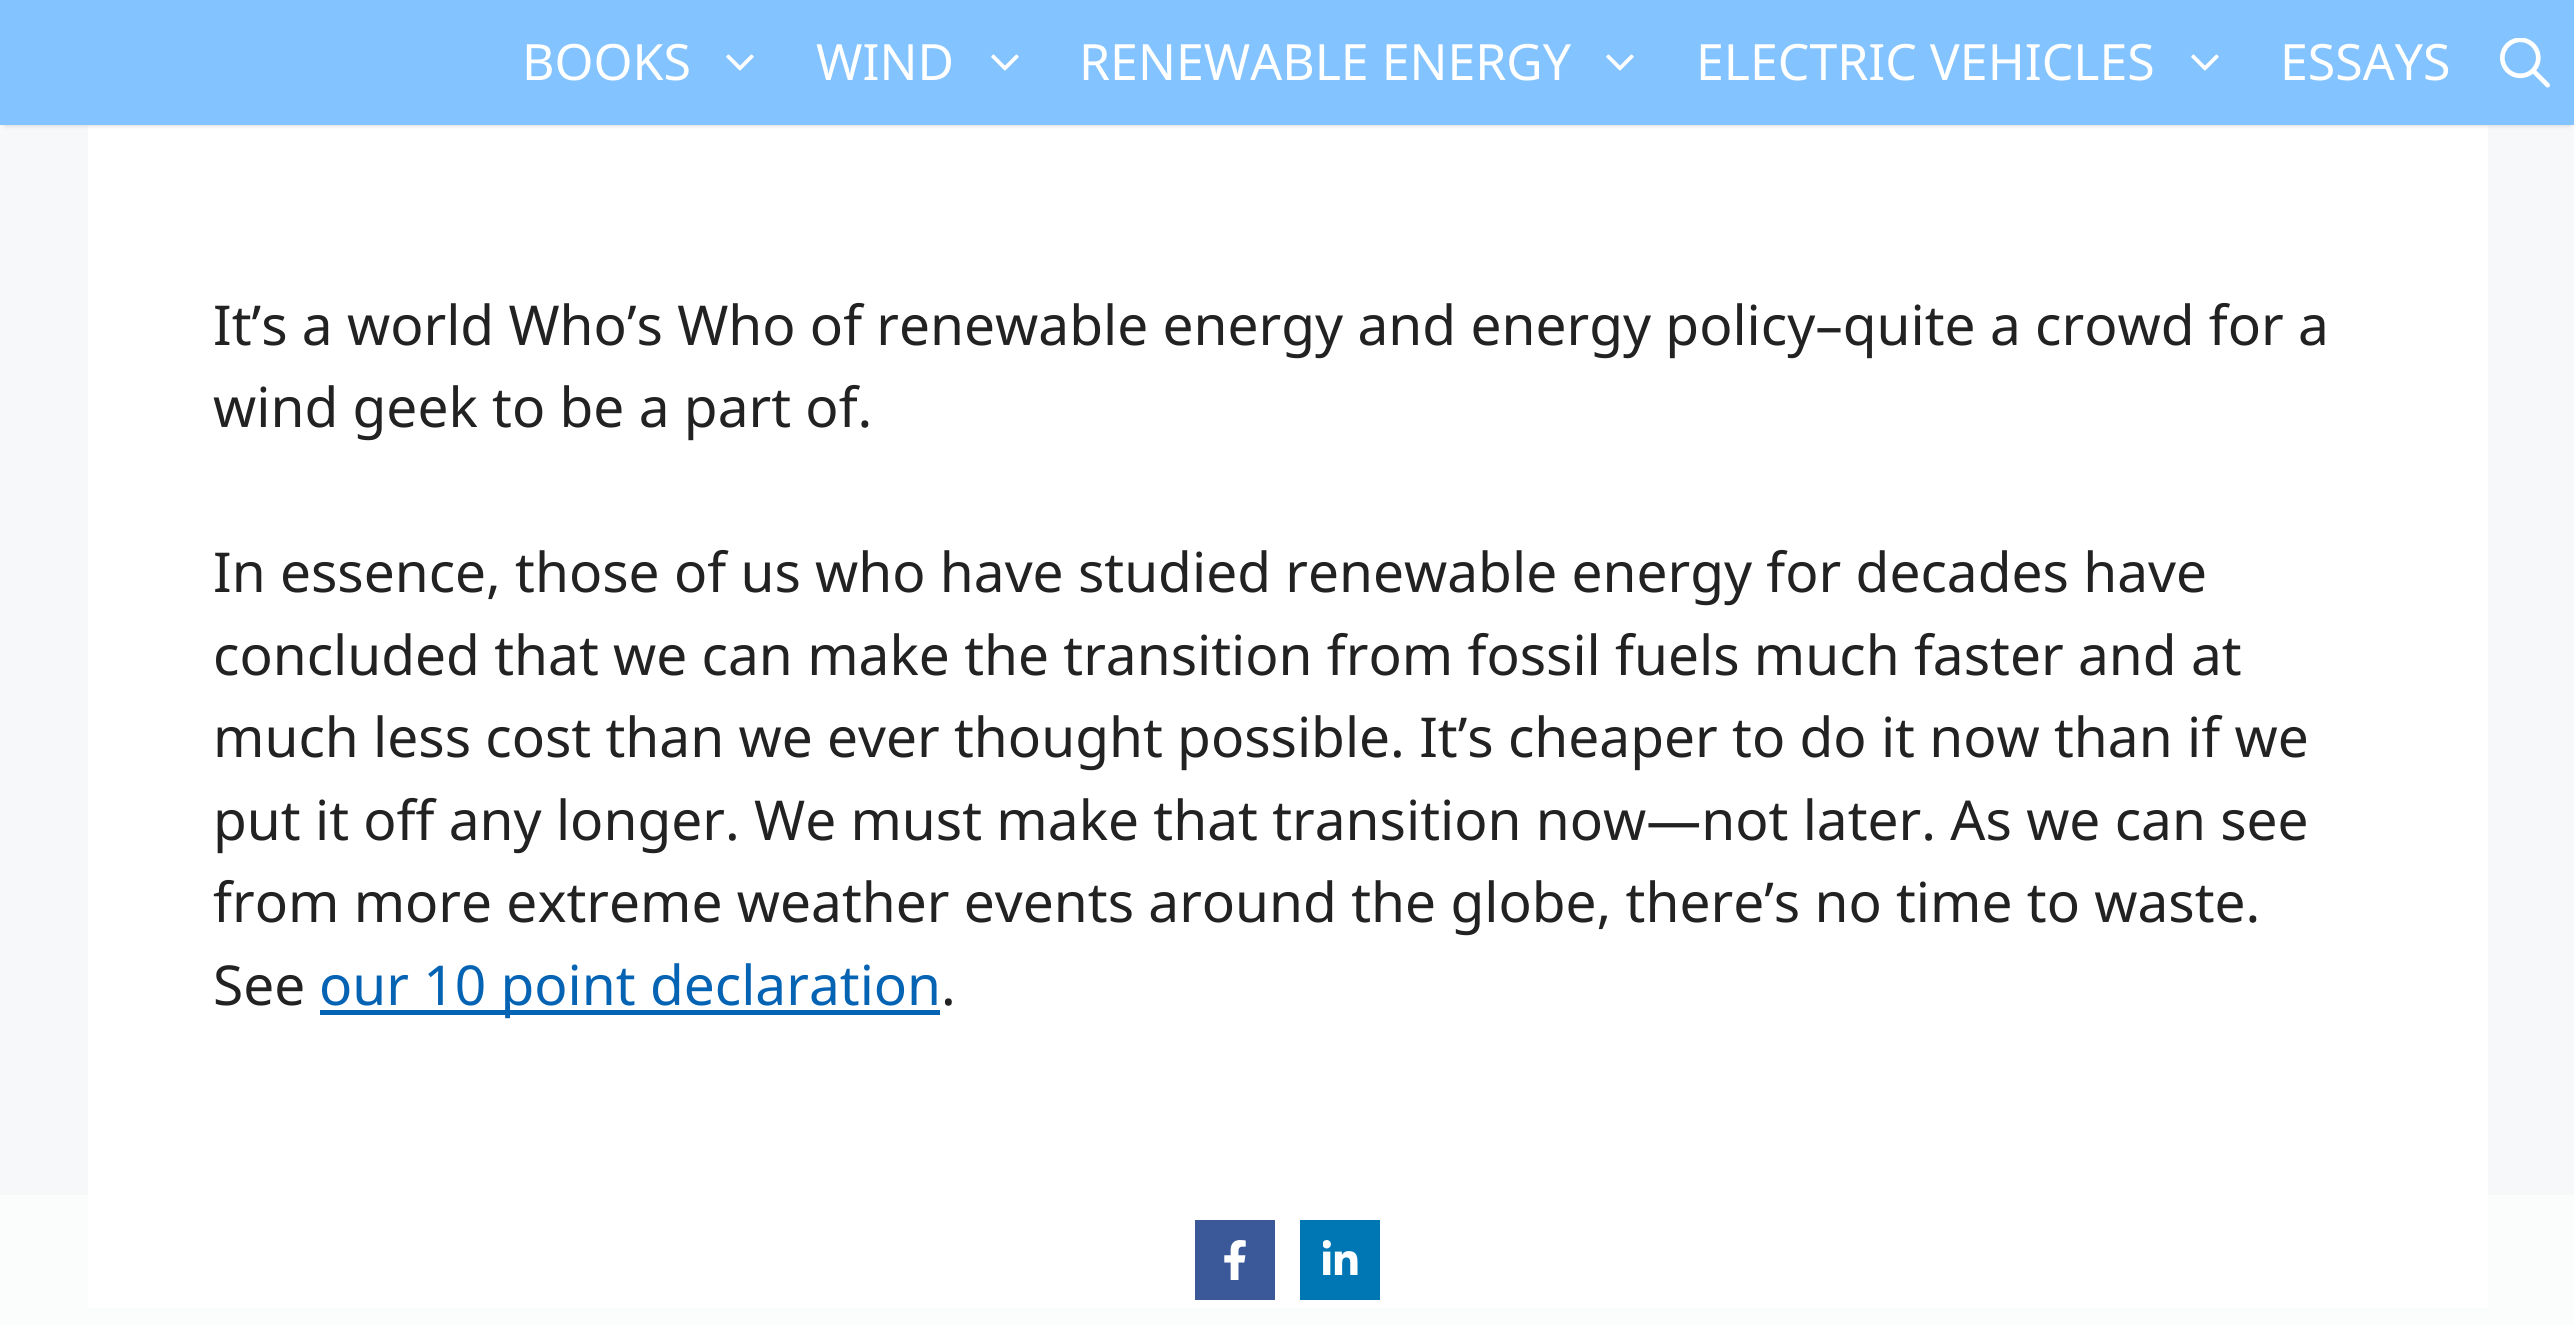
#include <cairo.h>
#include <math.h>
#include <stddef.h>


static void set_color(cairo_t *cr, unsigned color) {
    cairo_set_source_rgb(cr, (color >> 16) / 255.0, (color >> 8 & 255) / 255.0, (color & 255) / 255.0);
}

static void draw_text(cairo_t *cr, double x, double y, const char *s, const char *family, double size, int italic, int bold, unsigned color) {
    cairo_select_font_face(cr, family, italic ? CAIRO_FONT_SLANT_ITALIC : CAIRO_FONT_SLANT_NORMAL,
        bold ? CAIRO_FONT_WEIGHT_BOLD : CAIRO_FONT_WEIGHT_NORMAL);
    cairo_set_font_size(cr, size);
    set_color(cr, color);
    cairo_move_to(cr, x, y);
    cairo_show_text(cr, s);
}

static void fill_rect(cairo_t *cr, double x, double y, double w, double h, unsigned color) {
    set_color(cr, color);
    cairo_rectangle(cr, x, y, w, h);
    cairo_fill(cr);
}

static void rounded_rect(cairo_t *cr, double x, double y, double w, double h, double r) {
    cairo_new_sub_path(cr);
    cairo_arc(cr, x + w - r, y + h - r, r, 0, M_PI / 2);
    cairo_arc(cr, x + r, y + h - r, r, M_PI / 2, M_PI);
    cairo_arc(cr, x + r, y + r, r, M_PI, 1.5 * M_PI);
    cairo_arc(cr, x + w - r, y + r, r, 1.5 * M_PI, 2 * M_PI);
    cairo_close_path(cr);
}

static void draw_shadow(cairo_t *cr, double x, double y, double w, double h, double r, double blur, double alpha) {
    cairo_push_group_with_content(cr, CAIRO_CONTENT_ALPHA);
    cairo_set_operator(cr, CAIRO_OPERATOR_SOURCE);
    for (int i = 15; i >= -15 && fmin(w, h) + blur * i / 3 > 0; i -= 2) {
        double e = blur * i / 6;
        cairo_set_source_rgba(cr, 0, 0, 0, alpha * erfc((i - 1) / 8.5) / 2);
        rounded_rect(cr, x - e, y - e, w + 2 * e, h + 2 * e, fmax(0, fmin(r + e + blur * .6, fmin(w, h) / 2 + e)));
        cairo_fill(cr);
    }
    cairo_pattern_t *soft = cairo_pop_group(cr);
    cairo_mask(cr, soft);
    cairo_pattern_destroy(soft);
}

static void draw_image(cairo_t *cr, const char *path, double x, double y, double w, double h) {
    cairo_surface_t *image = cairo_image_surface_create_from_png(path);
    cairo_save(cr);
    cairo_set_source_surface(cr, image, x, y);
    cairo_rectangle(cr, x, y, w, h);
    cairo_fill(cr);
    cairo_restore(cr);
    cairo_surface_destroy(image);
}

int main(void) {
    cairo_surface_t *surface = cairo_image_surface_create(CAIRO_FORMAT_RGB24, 2574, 1325);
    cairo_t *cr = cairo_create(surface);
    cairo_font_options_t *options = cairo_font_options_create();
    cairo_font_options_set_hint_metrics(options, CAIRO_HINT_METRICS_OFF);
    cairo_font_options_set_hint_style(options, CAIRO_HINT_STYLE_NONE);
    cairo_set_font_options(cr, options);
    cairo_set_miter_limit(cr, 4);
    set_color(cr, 0xF7F8F9);
    cairo_paint(cr);
    fill_rect(cr, 0, 1195, 2574, 130, 0xFBFCFC);
    fill_rect(cr, 88, 125, 2400, 1183, 0xFFFFFF);
    set_color(cr, 0x000000);
    draw_shadow(cr, 5, 10, 2565, 115, 0, 2.5, 0.2);
    fill_rect(cr, 0, 0, 2574, 125, 0x83C3FF);
    draw_text(cr, 522, 80, "BOOKS", "Noto Sans", 50, 0, 0, 0xFFFFFF);
    draw_image(cr, "assets/img1.png", 726, 54, 28, 17);
    draw_text(cr, 816, 80, "WIND", "Noto Sans", 50, 0, 0, 0xFFFFFF);
    draw_image(cr, "assets/img1.png", 991, 54, 28, 17);
    draw_text(cr, 1079, 80, "RENEWABLE ENERGY", "Noto Sans", 50, 0, 0, 0xFFFFFF);
    draw_image(cr, "assets/img1.png", 1606, 54, 28, 17);
    draw_text(cr, 1696, 80, "ELECTRIC VEHICLES", "Noto Sans", 50, 0, 0, 0xFFFFFF);
    draw_image(cr, "assets/img1.png", 2191, 54, 28, 17);
    draw_text(cr, 2280, 80, "ESSAYS", "Noto Sans", 50, 0, 0, 0xFFFFFF);
    draw_image(cr, "assets/img2.png", 2500, 38, 50, 50);
    draw_text(cr, 213, 345, "It’s a world Who’s Who of renewable energy and energy policy–quite a crowd for a", "Noto Sans", 55, 0, 0, 0x222222);
    draw_text(cr, 213, 427, "wind geek to be a part of.", "Noto Sans", 55, 0, 0, 0x222222);
    draw_text(cr, 213, 592, "In essence, those of us who have studied renewable energy for decades have", "Noto Sans", 55, 0, 0, 0x222222);
    draw_text(cr, 213, 675, "concluded that we can make the transition from fossil fuels much faster and at", "Noto Sans", 55, 0, 0, 0x222222);
    draw_text(cr, 213, 757, "much less cost than we ever thought possible. It’s cheaper to do it now than if we", "Noto Sans", 55, 0, 0, 0x222222);
    draw_text(cr, 213, 840, "put it off any longer. We must make that transition now—not later. As we can see", "Noto Sans", 55, 0, 0, 0x222222);
    draw_text(cr, 213, 922, "from more extreme weather events around the globe, there’s no time to waste.", "Noto Sans", 55, 0, 0, 0x222222);
    draw_text(cr, 213, 1005, "See", "Noto Sans", 55, 0, 0, 0x222222);
    fill_rect(cr, 320, 1010, 620, 5, 0x0563B4);
    draw_text(cr, 319, 1005, "our 10 point declaration", "Noto Sans", 55, 0, 0, 0x0563B4);
    draw_text(cr, 941, 1005, ".", "Noto Sans", 55, 0, 0, 0x222222);
    fill_rect(cr, 1195, 1220, 80, 80, 0x3B5998);
    draw_image(cr, "assets/img3.png", 1224, 1240, 22, 40);
    fill_rect(cr, 1300, 1220, 80, 80, 0x0077B5);
    draw_image(cr, "assets/img4.png", 1323, 1240, 35, 35);
    cairo_surface_write_to_png(surface, "output.png");
    cairo_font_options_destroy(options);
    cairo_destroy(cr);
    cairo_surface_destroy(surface);
    return 0;
}
